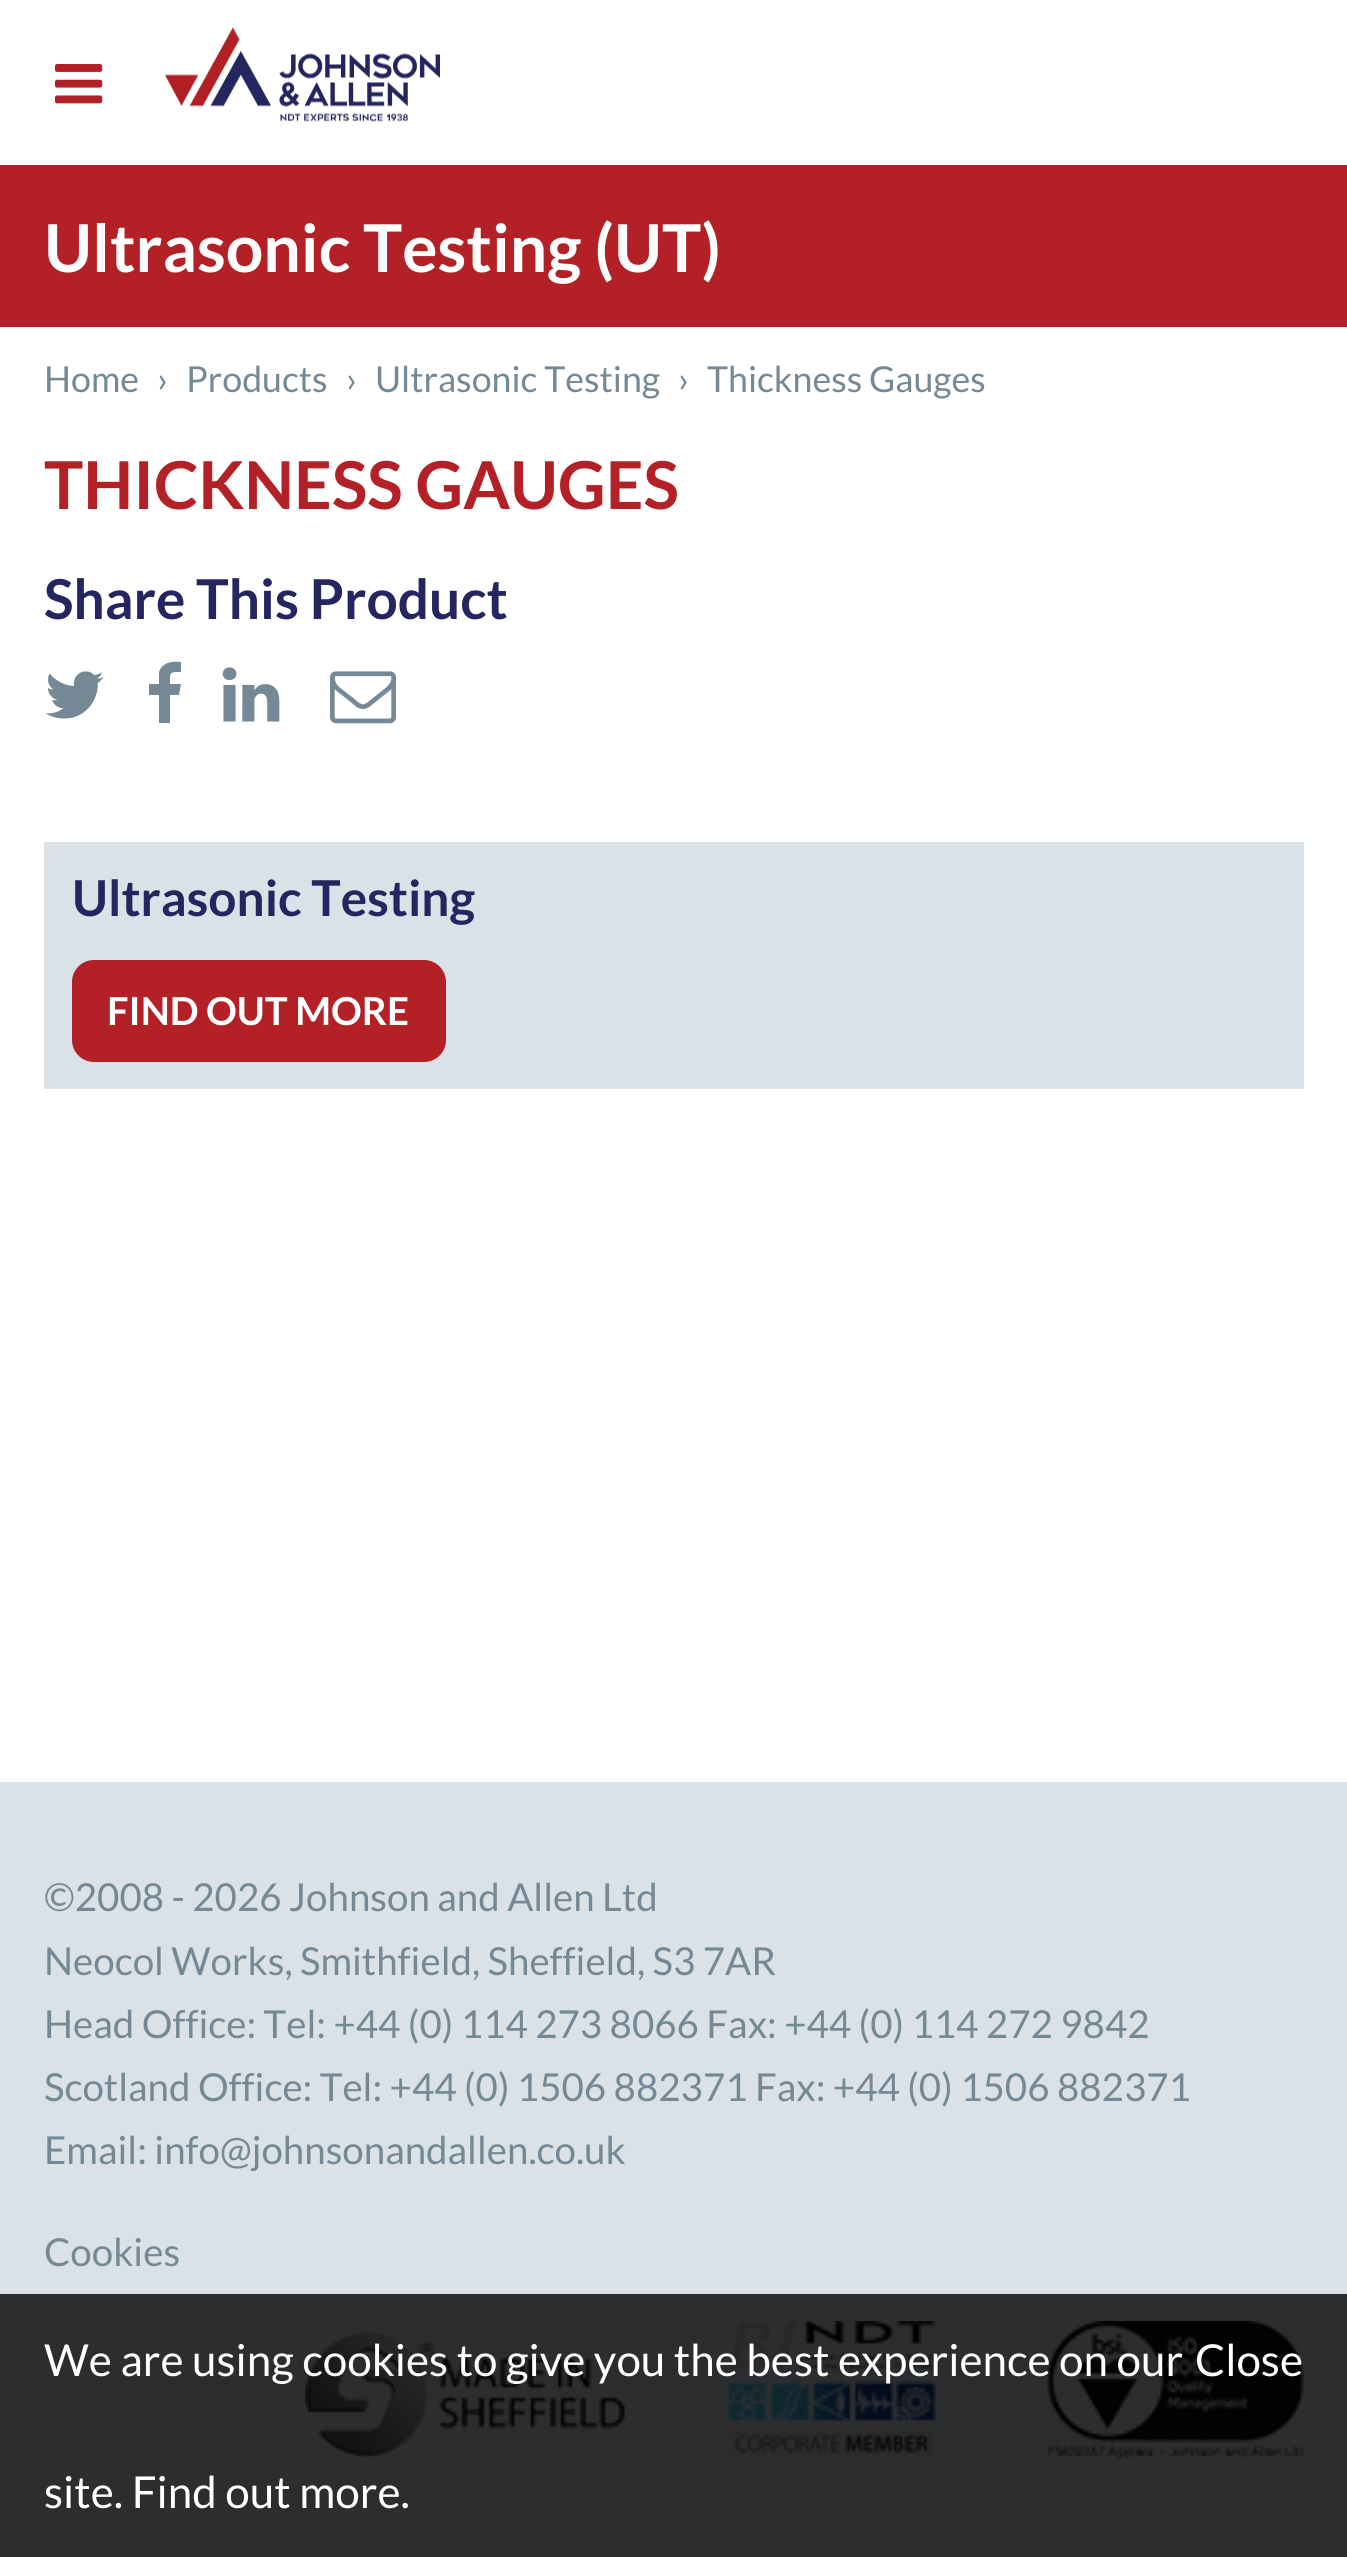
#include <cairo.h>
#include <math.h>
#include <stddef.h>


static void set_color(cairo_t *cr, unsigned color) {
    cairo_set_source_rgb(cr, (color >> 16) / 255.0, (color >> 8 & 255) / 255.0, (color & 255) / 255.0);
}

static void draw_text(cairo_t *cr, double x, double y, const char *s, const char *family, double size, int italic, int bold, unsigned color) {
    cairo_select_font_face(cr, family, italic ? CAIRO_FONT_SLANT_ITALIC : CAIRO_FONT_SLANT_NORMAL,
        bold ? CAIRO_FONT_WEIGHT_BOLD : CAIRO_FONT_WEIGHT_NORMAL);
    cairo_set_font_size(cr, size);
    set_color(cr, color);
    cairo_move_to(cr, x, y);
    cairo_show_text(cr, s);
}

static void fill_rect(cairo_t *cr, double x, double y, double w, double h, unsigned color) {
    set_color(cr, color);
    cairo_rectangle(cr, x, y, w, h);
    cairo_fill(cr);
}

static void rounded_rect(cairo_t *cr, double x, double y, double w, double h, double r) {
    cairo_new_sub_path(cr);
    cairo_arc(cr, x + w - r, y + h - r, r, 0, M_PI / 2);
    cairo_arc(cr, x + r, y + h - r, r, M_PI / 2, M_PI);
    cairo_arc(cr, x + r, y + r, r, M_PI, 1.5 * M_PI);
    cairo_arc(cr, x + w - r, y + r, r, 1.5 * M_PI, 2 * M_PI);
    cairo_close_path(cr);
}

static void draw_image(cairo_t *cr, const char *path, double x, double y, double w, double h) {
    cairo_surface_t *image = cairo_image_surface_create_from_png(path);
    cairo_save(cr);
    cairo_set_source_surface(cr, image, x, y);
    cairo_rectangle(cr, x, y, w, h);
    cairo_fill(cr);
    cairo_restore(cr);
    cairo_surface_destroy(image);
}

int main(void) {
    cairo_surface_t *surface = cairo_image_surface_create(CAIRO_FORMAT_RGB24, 1347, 2557);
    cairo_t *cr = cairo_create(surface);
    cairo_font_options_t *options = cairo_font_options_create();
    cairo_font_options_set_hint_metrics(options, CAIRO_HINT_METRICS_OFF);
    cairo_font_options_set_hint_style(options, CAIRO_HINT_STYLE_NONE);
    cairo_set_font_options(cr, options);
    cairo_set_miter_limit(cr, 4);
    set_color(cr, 0xFFFFFF);
    cairo_paint(cr);
    draw_image(cr, "assets/img1.png", 55, 64, 48, 40);
    draw_image(cr, "assets/img2.png", 165, 27, 275, 95);
    fill_rect(cr, 0, 165, 1347, 162, 0xB32025);
    draw_text(cr, 44, 272, "Ultrasonic Testing (UT)", "Lato", 66, 0, 1, 0xFFFFFF);
    draw_text(cr, 44, 392, "Home", "Lato", 35.75, 0, 0, 0x748995);
    draw_text(cr, 157, 392, "›", "Lato", 35.75, 0, 0, 0x748995);
    draw_text(cr, 186, 392, "Products", "Lato", 35.75, 0, 0, 0x748995);
    draw_text(cr, 346, 392, "›", "Lato", 35.75, 0, 0, 0x748995);
    draw_text(cr, 375, 392, "Ultrasonic Testing", "Lato", 35.75, 0, 0, 0x748995);
    draw_text(cr, 678, 392, "›", "Lato", 35.75, 0, 0, 0x748995);
    draw_text(cr, 707, 392, "Thickness Gauges", "Lato", 35.75, 0, 0, 0x748995);
    draw_text(cr, 44, 509, "THICKNESS GAUGES", "Lato", 66, 0, 1, 0xB32025);
    draw_text(cr, 44, 619, "Share This Product", "Lato", 55, 0, 1, 0x242660);
    draw_image(cr, "assets/img3.png", 45, 671, 59, 48);
    set_color(cr, 0x748995);
    cairo_new_path(cr);
    cairo_move_to(cr, 181, 662);
    cairo_line_to(cr, 181, 672);
    cairo_curve_to(cr, 169, 672, 170, 672, 170, 684);
    cairo_line_to(cr, 181, 684);
    cairo_line_to(cr, 179, 695);
    cairo_line_to(cr, 170, 695);
    cairo_line_to(cr, 170, 723);
    cairo_line_to(cr, 159, 723);
    cairo_line_to(cr, 159, 695);
    cairo_line_to(cr, 149, 695);
    cairo_line_to(cr, 149, 684);
    cairo_line_to(cr, 159, 684);
    cairo_line_to(cr, 159, 672);
    cairo_curve_to(cr, 162, 662, 173, 661, 181, 662);
    cairo_close_path(cr);
    cairo_fill(cr);
    draw_image(cr, "assets/img4.png", 222, 667, 58, 55);
    draw_image(cr, "assets/img5.png", 330, 671, 66, 53);
    fill_rect(cr, 44, 842, 1260, 247, 0xDAE2E7);
    draw_text(cr, 72, 916, "Ultrasonic Testing", "Lato", 49.5, 0, 1, 0x242660);
    set_color(cr, 0xB32025);
    rounded_rect(cr, 73.5, 961.5, 371, 99, 20.5);
    cairo_fill_preserve(cr);
    cairo_set_line_width(cr, 3);
    cairo_stroke(cr);
    draw_text(cr, 107, 1025, "FIND OUT MORE", "Lato", 38.5, 0, 1, 0xFFFFFF);
    fill_rect(cr, 0, 1782, 1347, 512, 0xDAE2E7);
    fill_rect(cr, 0, 2294, 1347, 263, 0x2C2D2E);
    draw_text(cr, 44, 1911, "©2008 - 2026 Johnson and Allen Ltd", "Lato", 38.5, 0, 0, 0x748995);
    draw_text(cr, 44, 1975, "Neocol Works, Smithfield, Sheffield, S3 7AR", "Lato", 38.5, 0, 0, 0x748995);
    draw_text(cr, 44, 2038, "Head Office: Tel: +44 (0) 114 273 8066 Fax: +44 (0) 114 272 9842", "Lato", 38.5, 0, 0, 0x748995);
    draw_text(cr, 44, 2101, "Scotland Office: Tel: +44 (0) 1506 882371 Fax: +44 (0) 1506 882371", "Lato", 38.5, 0, 0, 0x748995);
    draw_text(cr, 44, 2164, "Email: info@johnsonandallen.co.uk", "Lato", 38.5, 0, 0, 0x748995);
    draw_text(cr, 44, 2266, "Cookies", "Lato", 38.5, 0, 0, 0x748995);
    draw_image(cr, "assets/img6.png", 305, 2321, 999, 138);
    draw_text(cr, 44, 2376, "We are using cookies to give you the best experience on our", "Lato", 44, 0, 0, 0xFFFFFF);
    draw_text(cr, 1195, 2376, "Close", "Lato", 44, 0, 0, 0xFFFFFF);
    draw_text(cr, 44, 2508, "site. Find out more.", "Lato", 44, 0, 0, 0xFFFFFF);
    cairo_surface_write_to_png(surface, "output.png");
    cairo_font_options_destroy(options);
    cairo_destroy(cr);
    cairo_surface_destroy(surface);
    return 0;
}
